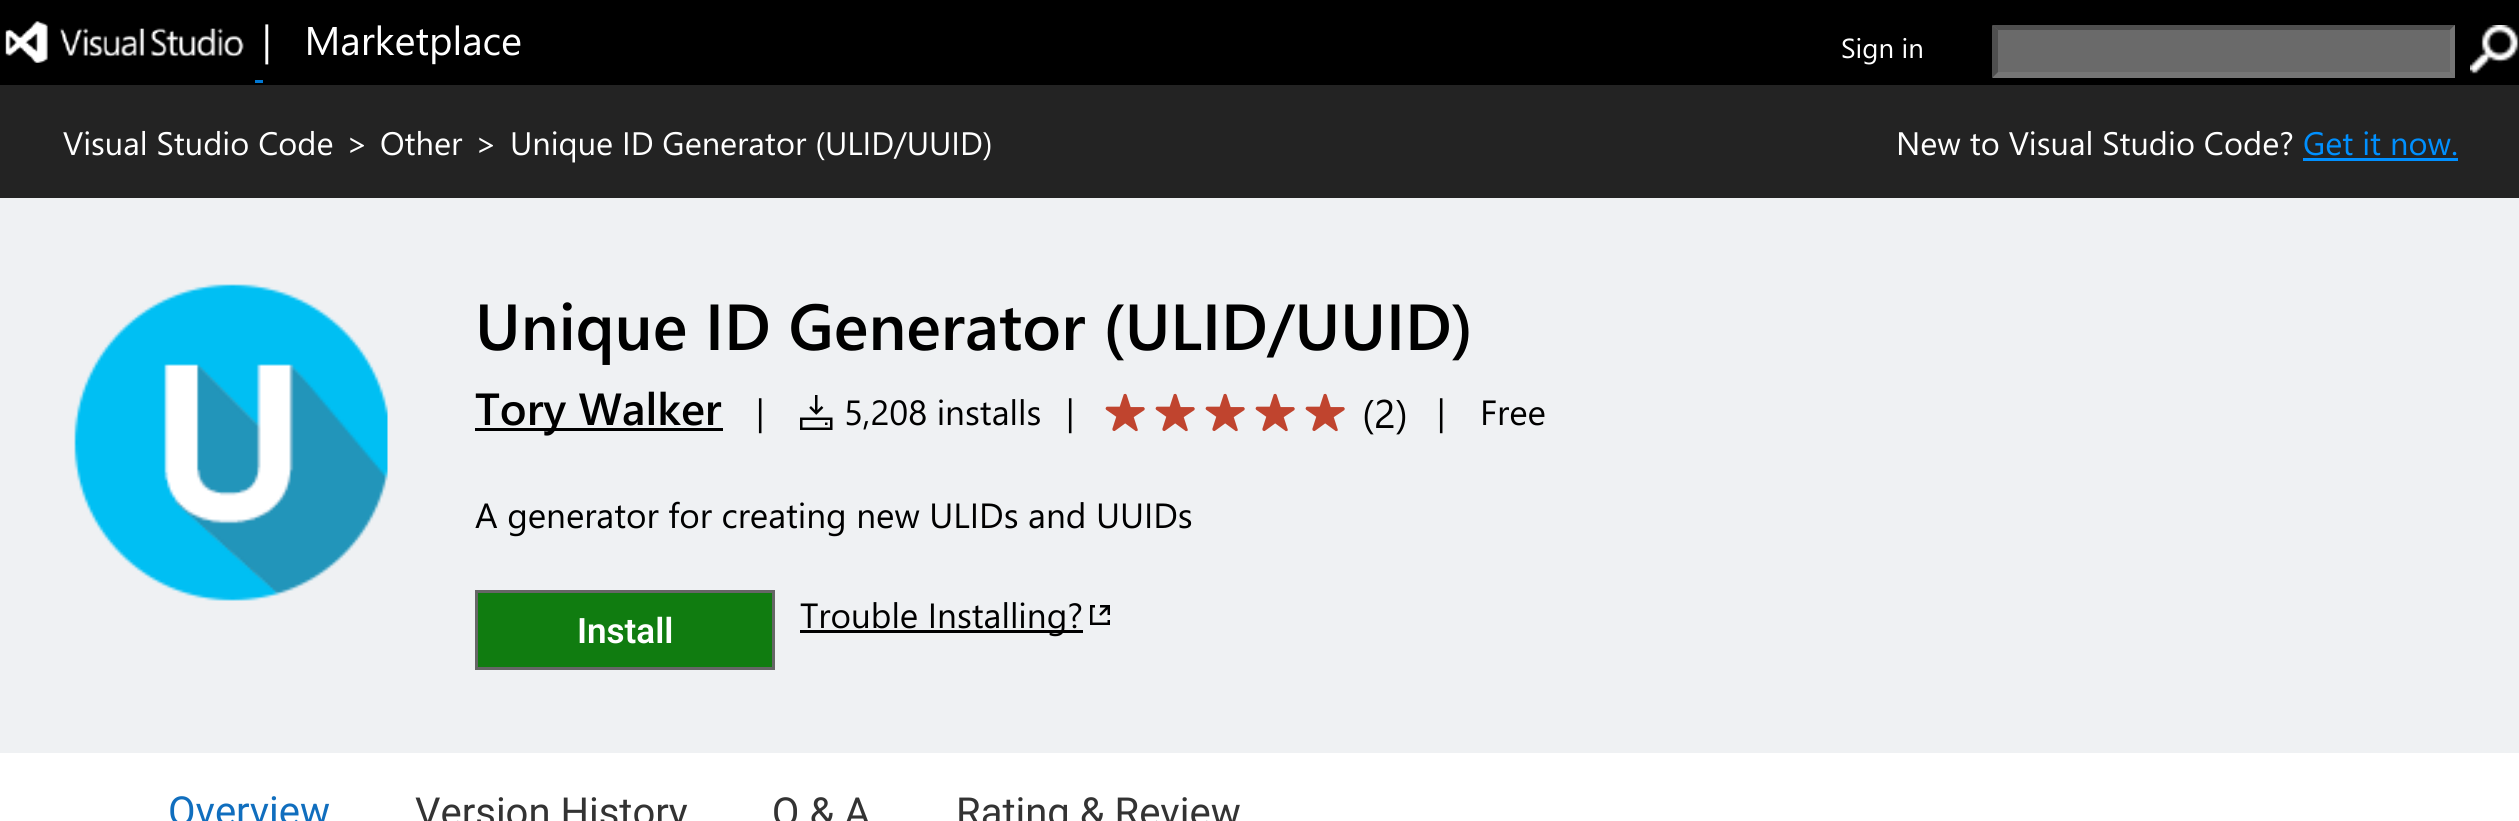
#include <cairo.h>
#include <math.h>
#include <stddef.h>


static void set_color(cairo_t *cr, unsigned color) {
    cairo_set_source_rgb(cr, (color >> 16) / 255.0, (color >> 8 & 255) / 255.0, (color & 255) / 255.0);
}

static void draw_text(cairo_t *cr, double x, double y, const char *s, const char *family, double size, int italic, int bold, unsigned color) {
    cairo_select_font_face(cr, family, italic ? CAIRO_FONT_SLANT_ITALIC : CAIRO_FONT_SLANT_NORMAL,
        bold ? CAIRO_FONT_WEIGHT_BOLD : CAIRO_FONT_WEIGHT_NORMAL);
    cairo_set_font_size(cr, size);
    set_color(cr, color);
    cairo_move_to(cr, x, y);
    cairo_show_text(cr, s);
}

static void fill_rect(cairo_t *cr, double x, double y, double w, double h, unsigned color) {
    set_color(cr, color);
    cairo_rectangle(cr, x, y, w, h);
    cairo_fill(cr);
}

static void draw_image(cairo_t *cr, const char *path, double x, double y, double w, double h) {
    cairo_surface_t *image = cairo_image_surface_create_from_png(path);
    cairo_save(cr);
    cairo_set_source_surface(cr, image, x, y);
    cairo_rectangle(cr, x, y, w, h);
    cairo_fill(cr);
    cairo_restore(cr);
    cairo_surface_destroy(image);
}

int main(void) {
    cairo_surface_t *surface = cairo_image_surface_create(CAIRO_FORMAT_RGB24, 2519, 821);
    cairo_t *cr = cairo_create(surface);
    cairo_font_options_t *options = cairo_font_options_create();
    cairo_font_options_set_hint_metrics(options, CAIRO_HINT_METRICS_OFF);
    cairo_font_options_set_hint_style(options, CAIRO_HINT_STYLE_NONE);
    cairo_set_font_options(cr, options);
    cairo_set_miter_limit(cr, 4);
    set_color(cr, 0xFFFFFF);
    cairo_paint(cr);
    fill_rect(cr, 0, 0, 2519, 85, 0x000000);
    draw_image(cr, "assets/img1.png", 5, 21, 239, 42);
    draw_text(cr, 262, 55, "|   Marketplace", "Segoe UI", 40, 0, 0, 0xFFFFFF);
    fill_rect(cr, 255, 80, 8, 3, 0x0078D4);
    draw_text(cr, 1841, 58, "Sign in", "Segoe UI", 27.5, 0, 0, 0xFFFFFF);
    fill_rect(cr, 1993, 25, 462, 53, 0x6A6A6A);
    set_color(cr, 0x4F4F4F);
    cairo_new_path(cr);
    cairo_move_to(cr, 1992, 25);
    cairo_line_to(cr, 2455, 25);
    cairo_line_to(cr, 2450, 30);
    cairo_line_to(cr, 1998, 30);
    cairo_close_path(cr);
    cairo_fill(cr);
    set_color(cr, 0x767676);
    cairo_new_path(cr);
    cairo_move_to(cr, 2455, 25);
    cairo_line_to(cr, 2455, 78);
    cairo_line_to(cr, 2450, 72);
    cairo_line_to(cr, 2450, 30);
    cairo_close_path(cr);
    cairo_fill(cr);
    cairo_new_path(cr);
    cairo_move_to(cr, 2455, 78);
    cairo_line_to(cr, 1992, 78);
    cairo_line_to(cr, 1998, 72);
    cairo_line_to(cr, 2450, 72);
    cairo_close_path(cr);
    cairo_fill(cr);
    set_color(cr, 0x4F4F4F);
    cairo_new_path(cr);
    cairo_move_to(cr, 1992, 78);
    cairo_line_to(cr, 1992, 25);
    cairo_line_to(cr, 1998, 30);
    cairo_line_to(cr, 1998, 72);
    cairo_close_path(cr);
    cairo_fill(cr);
    draw_image(cr, "assets/img2.png", 2470, 25, 49, 49);
    fill_rect(cr, 0, 85, 2519, 113, 0x232323);
    draw_text(cr, 63, 155, "Visual Studio Code", "Segoe UI", 32.5, 0, 0, 0xFFFFFF);
    draw_text(cr, 346, 155, ">", "Segoe UI", 32.5, 0, 0, 0xFFFFFF);
    draw_text(cr, 380, 155, "Other", "Segoe UI", 32.5, 0, 0, 0xFFFFFF);
    draw_text(cr, 475, 155, ">", "Segoe UI", 32.5, 0, 0, 0xFFFFFF);
    draw_text(cr, 510, 155, "Unique ID Generator (ULID/UUID)", "Segoe UI", 32.5, 0, 0, 0xFFFFFF);
    draw_text(cr, 1896, 155, "New to Visual Studio Code?", "Segoe UI", 32.5, 0, 0, 0xFFFFFF);
    draw_text(cr, 2303, 155, "Get it now.", "Segoe UI", 32.5, 0, 0, 0x0090FF);
    fill_rect(cr, 2303, 158, 155, 3, 0x0090FF);
    fill_rect(cr, 0, 198, 2519, 555, 0xEFF1F3);
    draw_image(cr, "assets/img3.png", 74, 284, 314, 317);
    draw_text(cr, 475, 350, "Unique ID Generator (ULID/UUID)", "Segoe UI SemiBold", 65, 0, 0, 0x000000);
    fill_rect(cr, 475, 428, 248, 3, 0x000000);
    draw_text(cr, 475, 425, "Tory Walker", "Segoe UI SemiBold", 45, 0, 0, 0x000000);
    draw_text(cr, 756, 425, "|", "Segoe UI", 35, 0, 0, 0x000000);
    draw_image(cr, "assets/img4.png", 800, 395, 33, 35);
    draw_text(cr, 844, 425, "5,208 installs", "Segoe UI", 35, 0, 0, 0x000000);
    draw_text(cr, 1066, 425, "|", "Segoe UI", 35, 0, 0, 0x000000);
    draw_image(cr, "assets/img5.png", 1105, 393, 40, 39);
    draw_image(cr, "assets/img5.png", 1155, 393, 40, 39);
    draw_image(cr, "assets/img5.png", 1205, 393, 40, 39);
    draw_image(cr, "assets/img5.png", 1255, 393, 40, 39);
    draw_image(cr, "assets/img5.png", 1305, 393, 40, 39);
    draw_text(cr, 1362, 428, "(2)", "Segoe UI", 40, 0, 0, 0x000000);
    draw_text(cr, 1437, 425, "|", "Segoe UI", 35, 0, 0, 0x000000);
    draw_text(cr, 1480, 425, "Free", "Segoe UI", 35, 0, 0, 0x000000);
    draw_text(cr, 475, 528, "A generator for creating new ULIDs and UUIDs", "Segoe UI", 35, 0, 0, 0x000000);
    set_color(cr, 0x107C10);
    cairo_rectangle(cr, 476.5, 591.5, 297, 77);
    cairo_fill_preserve(cr);
    set_color(cr, 0x666666);
    cairo_set_line_width(cr, 3);
    cairo_stroke(cr);
    draw_text(cr, 577, 643, "Install", "Roboto SemiBold", 35, 0, 0, 0xFFFFFF);
    fill_rect(cr, 800, 630, 283, 3, 0x000000);
    draw_text(cr, 800, 628, "Trouble Installing?", "Segoe UI", 35, 0, 0, 0x000000);
    draw_image(cr, "assets/img6.png", 1090, 605, 20, 20);
    draw_text(cr, 168, 825, "Overview", "Roboto", 40, 0, 0, 0x106EBE);
    draw_text(cr, 415, 826, "Version History", "Roboto", 40, 0, 0, 0x333333);
    draw_text(cr, 772, 826, "Q & A", "Roboto", 40, 0, 0, 0x333333);
    draw_text(cr, 956, 826, "Rating & Review", "Roboto", 40, 0, 0, 0x333333);
    cairo_surface_write_to_png(surface, "output.png");
    cairo_font_options_destroy(options);
    cairo_destroy(cr);
    cairo_surface_destroy(surface);
    return 0;
}
